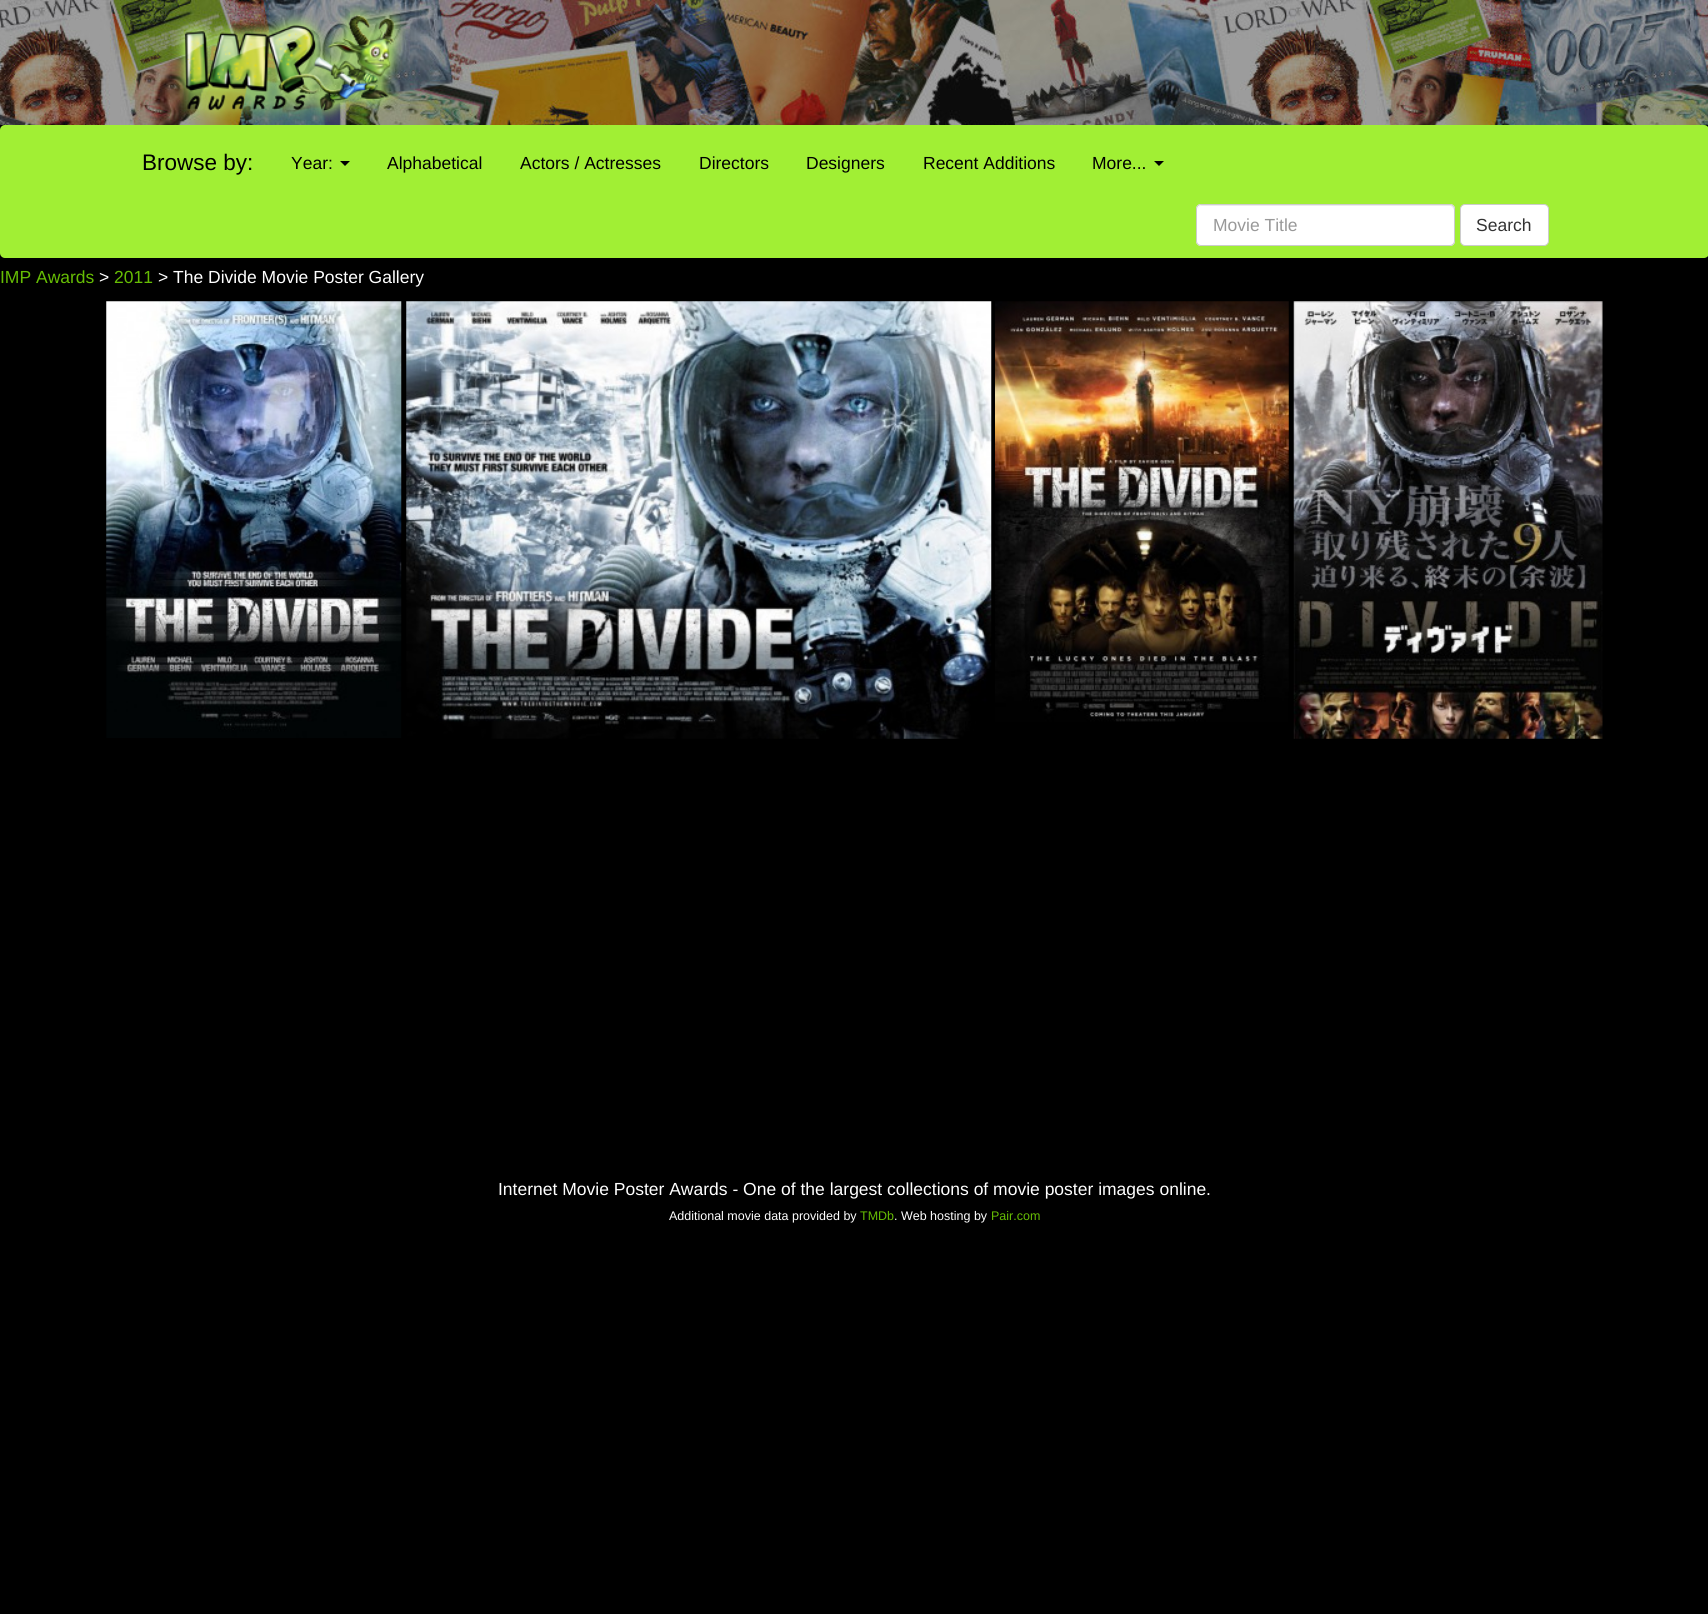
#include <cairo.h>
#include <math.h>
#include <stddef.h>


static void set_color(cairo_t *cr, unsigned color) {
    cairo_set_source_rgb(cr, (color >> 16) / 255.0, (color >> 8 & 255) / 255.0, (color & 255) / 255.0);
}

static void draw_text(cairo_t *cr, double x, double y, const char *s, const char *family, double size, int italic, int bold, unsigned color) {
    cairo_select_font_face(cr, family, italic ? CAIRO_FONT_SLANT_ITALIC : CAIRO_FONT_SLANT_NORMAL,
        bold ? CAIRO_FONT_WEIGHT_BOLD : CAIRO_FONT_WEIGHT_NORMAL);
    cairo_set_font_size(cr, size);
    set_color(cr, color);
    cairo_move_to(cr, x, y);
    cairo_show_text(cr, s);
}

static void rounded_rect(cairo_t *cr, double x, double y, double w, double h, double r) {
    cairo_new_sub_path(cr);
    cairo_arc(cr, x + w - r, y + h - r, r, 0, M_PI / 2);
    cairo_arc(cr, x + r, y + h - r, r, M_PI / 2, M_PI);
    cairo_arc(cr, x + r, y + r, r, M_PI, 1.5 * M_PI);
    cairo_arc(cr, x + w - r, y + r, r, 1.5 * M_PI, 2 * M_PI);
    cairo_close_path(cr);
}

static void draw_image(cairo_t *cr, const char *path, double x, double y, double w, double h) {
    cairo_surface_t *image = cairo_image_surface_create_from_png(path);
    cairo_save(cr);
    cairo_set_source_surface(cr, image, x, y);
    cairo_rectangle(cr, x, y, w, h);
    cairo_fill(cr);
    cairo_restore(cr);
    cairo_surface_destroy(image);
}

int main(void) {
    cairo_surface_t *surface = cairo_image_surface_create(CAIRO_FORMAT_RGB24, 1708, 1614);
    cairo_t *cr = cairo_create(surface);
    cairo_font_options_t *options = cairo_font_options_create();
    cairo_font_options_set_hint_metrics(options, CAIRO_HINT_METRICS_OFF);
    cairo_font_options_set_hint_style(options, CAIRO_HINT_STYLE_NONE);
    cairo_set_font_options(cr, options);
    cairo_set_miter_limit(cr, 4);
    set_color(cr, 0x000000);
    cairo_paint(cr);
    draw_image(cr, "assets/img1.png", 0, 0, 1708, 125);
    draw_image(cr, "assets/img2.png", 172, 4, 234, 118);
    set_color(cr, 0xA1EF34);
    rounded_rect(cr, 0, 125, 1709, 133, 5);
    cairo_fill(cr);
    draw_text(cr, 142, 170, "Browse by:", "Liberation Sans", 22.5, 0, 0, 0x000000);
    draw_text(cr, 291, 169, "Year:", "Liberation Sans", 17.5, 0, 0, 0x000000);
    cairo_new_path(cr);
    cairo_move_to(cr, 340, 161);
    cairo_line_to(cr, 350, 161);
    cairo_line_to(cr, 345, 166);
    cairo_close_path(cr);
    cairo_fill(cr);
    draw_text(cr, 387, 169, "Alphabetical", "Liberation Sans", 17.5, 0, 0, 0x000000);
    draw_text(cr, 520, 169, "Actors / Actresses", "Liberation Sans", 17.5, 0, 0, 0x000000);
    draw_text(cr, 699, 169, "Directors", "Liberation Sans", 17.5, 0, 0, 0x000000);
    draw_text(cr, 806, 169, "Designers", "Liberation Sans", 17.5, 0, 0, 0x000000);
    draw_text(cr, 923, 169, "Recent Additions", "Liberation Sans", 17.5, 0, 0, 0x000000);
    draw_text(cr, 1092, 169, "More...", "Liberation Sans", 17.5, 0, 0, 0x000000);
    cairo_new_path(cr);
    cairo_move_to(cr, 1154, 161);
    cairo_line_to(cr, 1164, 161);
    cairo_line_to(cr, 1159, 166);
    cairo_close_path(cr);
    cairo_fill(cr);
    set_color(cr, 0xFFFFFF);
    rounded_rect(cr, 1196, 204, 259, 42, 5);
    cairo_fill(cr);
    set_color(cr, 0xECECEC);
    cairo_new_path(cr);
    cairo_move_to(cr, 1201, 206);
    cairo_line_to(cr, 1451, 206);
    cairo_line_to(cr, 1453, 208);
    cairo_line_to(cr, 1454, 210);
    cairo_line_to(cr, 1454, 209);
    cairo_curve_to(cr, 1454, 207, 1452, 205, 1450, 205);
    cairo_line_to(cr, 1202, 205);
    cairo_curve_to(cr, 1200, 205, 1198, 207, 1198, 209);
    cairo_line_to(cr, 1198, 210);
    cairo_curve_to(cr, 1198, 208, 1199, 206, 1201, 206);
    cairo_close_path(cr);
    cairo_fill(cr);
    rounded_rect(cr, 1196.5, 204.5, 258, 41, 4.5);
    set_color(cr, 0xCCCCCC);
    cairo_set_line_width(cr, 1);
    cairo_stroke(cr);
    draw_text(cr, 1213, 231, "Movie Title", "Liberation Sans", 17.5, 0, 0, 0x999999);
    set_color(cr, 0xFFFFFF);
    rounded_rect(cr, 1460.5, 204.5, 88, 41, 4.5);
    cairo_fill_preserve(cr);
    set_color(cr, 0xCCCCCC);
    cairo_stroke(cr);
    draw_text(cr, 1476, 231, "Search", "Liberation Sans", 17.5, 0, 0, 0x333333);
    draw_text(cr, 0, 283, "IMP Awards", "Liberation Sans", 17.5, 0, 0, 0x66BD04);
    draw_text(cr, 99, 283, ">", "Liberation Sans", 17.5, 0, 0, 0xFFFFFF);
    draw_text(cr, 114, 283, "2011", "Liberation Sans", 17.5, 0, 0, 0x66BD04);
    draw_text(cr, 158, 283, "> The Divide Movie Poster Gallery", "Liberation Sans", 17.5, 0, 0, 0xFFFFFF);
    draw_image(cr, "assets/img3.png", 106, 301, 296, 437);
    draw_image(cr, "assets/img4.png", 406, 301, 586, 438);
    draw_image(cr, "assets/img5.png", 995, 301, 294, 421);
    draw_image(cr, "assets/img6.png", 1293, 301, 310, 438);
    draw_text(cr, 498, 1195, "Internet Movie Poster Awards - One of the largest collections of movie poster images online.", "Liberation Sans", 17.5, 0, 0, 0xFFFFFF);
    draw_text(cr, 669, 1220, "Additional movie data provided by", "Liberation Sans", 12.5, 0, 0, 0xFFFFFF);
    draw_text(cr, 860, 1220, "TMDb", "Liberation Sans", 12.5, 0, 0, 0x66BD04);
    draw_text(cr, 894, 1220, ". Web hosting by", "Liberation Sans", 12.5, 0, 0, 0xFFFFFF);
    draw_text(cr, 991, 1220, "Pair.com", "Liberation Sans", 12.5, 0, 0, 0x66BD04);
    cairo_surface_write_to_png(surface, "output.png");
    cairo_font_options_destroy(options);
    cairo_destroy(cr);
    cairo_surface_destroy(surface);
    return 0;
}
